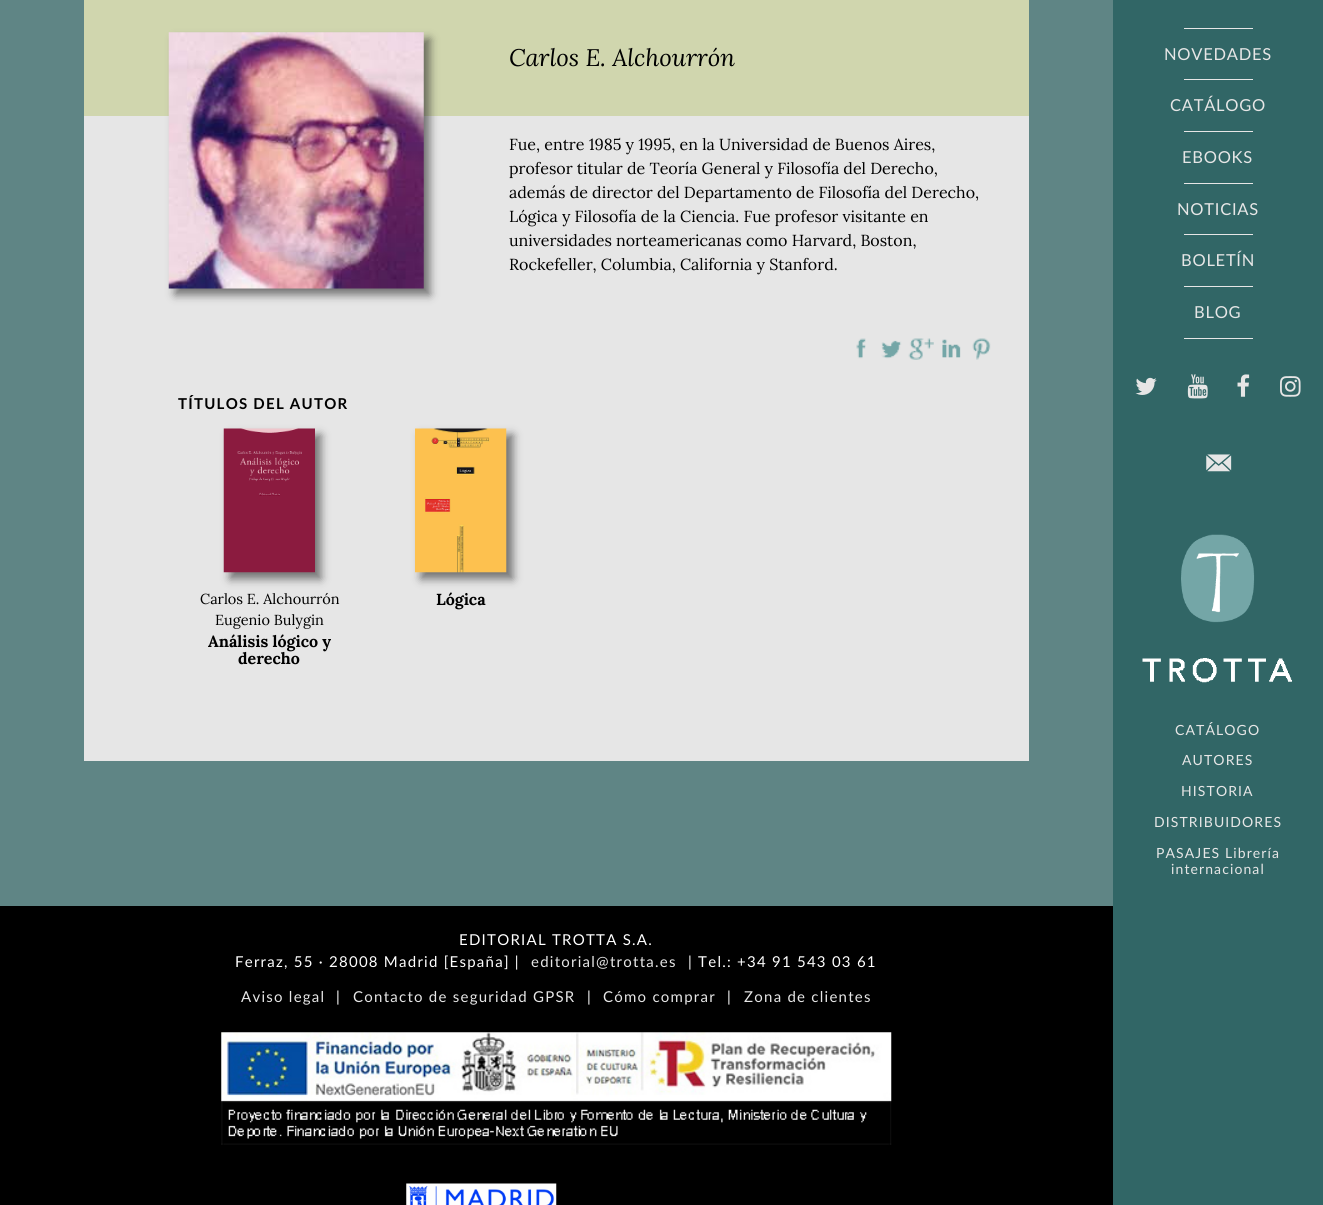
#include <cairo.h>
#include <math.h>
#include <stddef.h>


static void set_color(cairo_t *cr, unsigned color) {
    cairo_set_source_rgb(cr, (color >> 16) / 255.0, (color >> 8 & 255) / 255.0, (color & 255) / 255.0);
}

static void draw_text(cairo_t *cr, double x, double y, const char *s, const char *family, double size, int italic, int bold, unsigned color) {
    cairo_select_font_face(cr, family, italic ? CAIRO_FONT_SLANT_ITALIC : CAIRO_FONT_SLANT_NORMAL,
        bold ? CAIRO_FONT_WEIGHT_BOLD : CAIRO_FONT_WEIGHT_NORMAL);
    cairo_set_font_size(cr, size);
    set_color(cr, color);
    cairo_move_to(cr, x, y);
    cairo_show_text(cr, s);
}

static void draw_spaced(cairo_t *cr, double x, double y, const char *s, double letter, double word) {
    cairo_move_to(cr, x, y);
    while (*s) {
        char ch[5] = {0};
        int n = 0;
        do ch[n++] = *s++; while ((*s & 0xC0) == 0x80);
        cairo_show_text(cr, ch);
        cairo_rel_move_to(cr, letter + word * (*ch == ' '), 0);
    }
}

static void fill_rect(cairo_t *cr, double x, double y, double w, double h, unsigned color) {
    set_color(cr, color);
    cairo_rectangle(cr, x, y, w, h);
    cairo_fill(cr);
}

static void rounded_rect(cairo_t *cr, double x, double y, double w, double h, double r) {
    cairo_new_sub_path(cr);
    cairo_arc(cr, x + w - r, y + h - r, r, 0, M_PI / 2);
    cairo_arc(cr, x + r, y + h - r, r, M_PI / 2, M_PI);
    cairo_arc(cr, x + r, y + r, r, M_PI, 1.5 * M_PI);
    cairo_arc(cr, x + w - r, y + r, r, 1.5 * M_PI, 2 * M_PI);
    cairo_close_path(cr);
}

static void draw_shadow(cairo_t *cr, double x, double y, double w, double h, double r, double blur, double alpha) {
    cairo_push_group_with_content(cr, CAIRO_CONTENT_ALPHA);
    cairo_set_operator(cr, CAIRO_OPERATOR_SOURCE);
    for (int i = 15; i >= -15 && fmin(w, h) + blur * i / 3 > 0; i -= 2) {
        double e = blur * i / 6;
        cairo_set_source_rgba(cr, 0, 0, 0, alpha * erfc((i - 1) / 8.5) / 2);
        rounded_rect(cr, x - e, y - e, w + 2 * e, h + 2 * e, fmax(0, fmin(r + e + blur * .6, fmin(w, h) / 2 + e)));
        cairo_fill(cr);
    }
    cairo_pattern_t *soft = cairo_pop_group(cr);
    cairo_mask(cr, soft);
    cairo_pattern_destroy(soft);
}

static void draw_image(cairo_t *cr, const char *path, double x, double y, double w, double h) {
    cairo_surface_t *image = cairo_image_surface_create_from_png(path);
    cairo_save(cr);
    cairo_set_source_surface(cr, image, x, y);
    cairo_rectangle(cr, x, y, w, h);
    cairo_fill(cr);
    cairo_restore(cr);
    cairo_surface_destroy(image);
}

int main(void) {
    cairo_surface_t *surface = cairo_image_surface_create(CAIRO_FORMAT_RGB24, 1323, 1205);
    cairo_t *cr = cairo_create(surface);
    cairo_font_options_t *options = cairo_font_options_create();
    cairo_font_options_set_hint_metrics(options, CAIRO_HINT_METRICS_OFF);
    cairo_font_options_set_hint_style(options, CAIRO_HINT_STYLE_NONE);
    cairo_set_font_options(cr, options);
    cairo_set_miter_limit(cr, 4);
    set_color(cr, 0x5F8585);
    cairo_paint(cr);
    fill_rect(cr, 84, 116, 945, 645, 0xE6E6E6);
    fill_rect(cr, 84, 0, 945, 116, 0xD0D6AE);
    set_color(cr, 0x282828);
    draw_shadow(cr, 175, 39, 255, 256, 0, 4.5, 0.6);
    draw_image(cr, "assets/img1.png", 168, 32, 256, 257);
    draw_text(cr, 509, 66, "Carlos E. Alchourrón", "Lora", 24, 1, 0, 0x000000);
    draw_text(cr, 509, 150, "Fue, entre 1985 y 1995, en la Universidad de Buenos Aires,", "Lora", 16, 0, 0, 0x000000);
    draw_text(cr, 509, 174, "profesor titular de Teoría General y Filosofía del Derecho,", "Lora", 16, 0, 0, 0x000000);
    draw_text(cr, 509, 198, "además de director del Departamento de Filosofía del Derecho,", "Lora", 16, 0, 0, 0x000000);
    draw_text(cr, 509, 222, "Lógica y Filosofía de la Ciencia. Fue profesor visitante en", "Lora", 16, 0, 0, 0x000000);
    draw_text(cr, 509, 246, "universidades norteamericanas como Harvard, Boston,", "Lora", 16, 0, 0, 0x000000);
    draw_text(cr, 509, 270, "Rockefeller, Columbia, California y Stanford.", "Lora", 16, 0, 0, 0x000000);
    draw_image(cr, "assets/img2.png", 856, 338, 10, 21);
    draw_image(cr, "assets/img3.png", 881, 340, 21, 19);
    draw_image(cr, "assets/img4.png", 908, 338, 26, 22);
    draw_image(cr, "assets/img5.png", 942, 339, 19, 19);
    draw_image(cr, "assets/img6.png", 972, 338, 19, 22);
    cairo_select_font_face(cr, "Lato", CAIRO_FONT_SLANT_NORMAL, CAIRO_FONT_WEIGHT_BOLD);
    cairo_set_font_size(cr, 15);
    draw_spaced(cr, 178, 409, "TÍTULOS DEL AUTOR", 1.25, 0);
    set_color(cr, 0x282828);
    draw_shadow(cr, 230, 435, 91, 144, 0, 4.5, 0.6);
    draw_image(cr, "assets/img7.png", 223, 428, 92, 145);
    draw_text(cr, 200, 604, "Carlos E. Alchourrón", "Lora", 14.5, 0, 0, 0x000000);
    draw_text(cr, 215, 625, "Eugenio Bulygin", "Lora", 14.5, 0, 0, 0x000000);
    draw_text(cr, 208, 647, "Análisis lógico y", "Lora", 16, 0, 1, 0x000000);
    draw_text(cr, 238, 664, "derecho", "Lora", 16, 0, 1, 0x000000);
    set_color(cr, 0x282828);
    draw_shadow(cr, 421, 435, 92, 144, 0, 4.5, 0.6);
    draw_image(cr, "assets/img8.png", 415, 428, 92, 145);
    draw_text(cr, 436, 605, "Lógica", "Lora", 16, 0, 1, 0x000000);
    fill_rect(cr, 1113, 0, 210, 1205, 0x316666);
    fill_rect(cr, 1184, 28, 69, 1, 0xE6E6E6);
    cairo_select_font_face(cr, "Lato", CAIRO_FONT_SLANT_NORMAL, CAIRO_FONT_WEIGHT_NORMAL);
    cairo_set_font_size(cr, 16.5);
    draw_spaced(cr, 1164, 60, "NOVEDADES", 0.75, 0);
    fill_rect(cr, 1184, 79, 69, 1, 0xE6E6E6);
    draw_spaced(cr, 1170, 111, "CATÁLOGO", 0.75, 0);
    fill_rect(cr, 1184, 131, 69, 1, 0xE6E6E6);
    draw_spaced(cr, 1182, 163, "EBOOKS", 0.75, 0);
    fill_rect(cr, 1184, 183, 69, 1, 0xE6E6E6);
    draw_spaced(cr, 1177, 215, "NOTICIAS", 0.75, 0);
    fill_rect(cr, 1184, 234, 69, 1, 0xE6E6E6);
    draw_spaced(cr, 1181, 266, "BOLETÍN", 0.75, 0);
    fill_rect(cr, 1184, 286, 69, 1, 0xE6E6E6);
    draw_spaced(cr, 1194, 318, "BLOG", 0.75, 0);
    fill_rect(cr, 1184, 338, 69, 1, 0xE6E6E6);
    draw_image(cr, "assets/img9.png", 1135, 377, 22, 18);
    draw_image(cr, "assets/img10.png", 1187, 374, 21, 25);
    draw_image(cr, "assets/img11.png", 1237, 374, 13, 23);
    draw_image(cr, "assets/img12.png", 1280, 376, 21, 21);
    draw_image(cr, "assets/img13.png", 1206, 454, 26, 18);
    draw_image(cr, "assets/img14.png", 1142, 534, 150, 149);
    cairo_set_font_size(cr, 14);
    draw_spaced(cr, 1175, 735, "CATÁLOGO", 1.1, 0);
    draw_spaced(cr, 1182, 765, "AUTORES", 1.1, 0);
    draw_spaced(cr, 1181, 796, "HISTORIA", 1.1, 0);
    draw_spaced(cr, 1154, 827, "DISTRIBUIDORES", 1.1, 0);
    draw_spaced(cr, 1156, 858, "PASAJES Librería", 1.1, 0);
    draw_spaced(cr, 1171, 874, "internacional", 1.1, 0);
    fill_rect(cr, 0, 906, 1113, 299, 0x000000);
    cairo_set_font_size(cr, 15);
    set_color(cr, 0xFFFFFF);
    draw_spaced(cr, 459, 945, "EDITORIAL TROTTA S.A.", 1.25, 0);
    draw_spaced(cr, 235, 967, "Ferraz, 55 · 28008 Madrid [España] |", 1.25, 0);
    set_color(cr, 0xE6E6E6);
    draw_spaced(cr, 531, 967, "editorial@trotta.es", 1.25, 0);
    set_color(cr, 0xFFFFFF);
    draw_spaced(cr, 688, 967, "| Tel.: +34 91 543 03 61", 1.25, 0);
    set_color(cr, 0xE6E6E6);
    draw_spaced(cr, 241, 1002, "Aviso legal", 1.25, 0);
    set_color(cr, 0xFFFFFF);
    draw_spaced(cr, 336, 1002, "|", 1.25, 0);
    set_color(cr, 0xE6E6E6);
    draw_spaced(cr, 353, 1002, "Contacto de seguridad GPSR", 1.25, 0);
    set_color(cr, 0xFFFFFF);
    draw_spaced(cr, 587, 1002, "|", 1.25, 0);
    set_color(cr, 0xE6E6E6);
    draw_spaced(cr, 603, 1002, "Cómo comprar", 1.25, 0);
    set_color(cr, 0xFFFFFF);
    draw_spaced(cr, 727, 1002, "|", 1.25, 0);
    set_color(cr, 0xE6E6E6);
    draw_spaced(cr, 744, 1002, "Zona de clientes", 1.25, 0);
    draw_image(cr, "assets/img15.png", 221, 1032, 671, 113);
    draw_image(cr, "assets/img16.png", 406, 1183, 151, 22);
    cairo_surface_write_to_png(surface, "output.png");
    cairo_font_options_destroy(options);
    cairo_destroy(cr);
    cairo_surface_destroy(surface);
    return 0;
}
